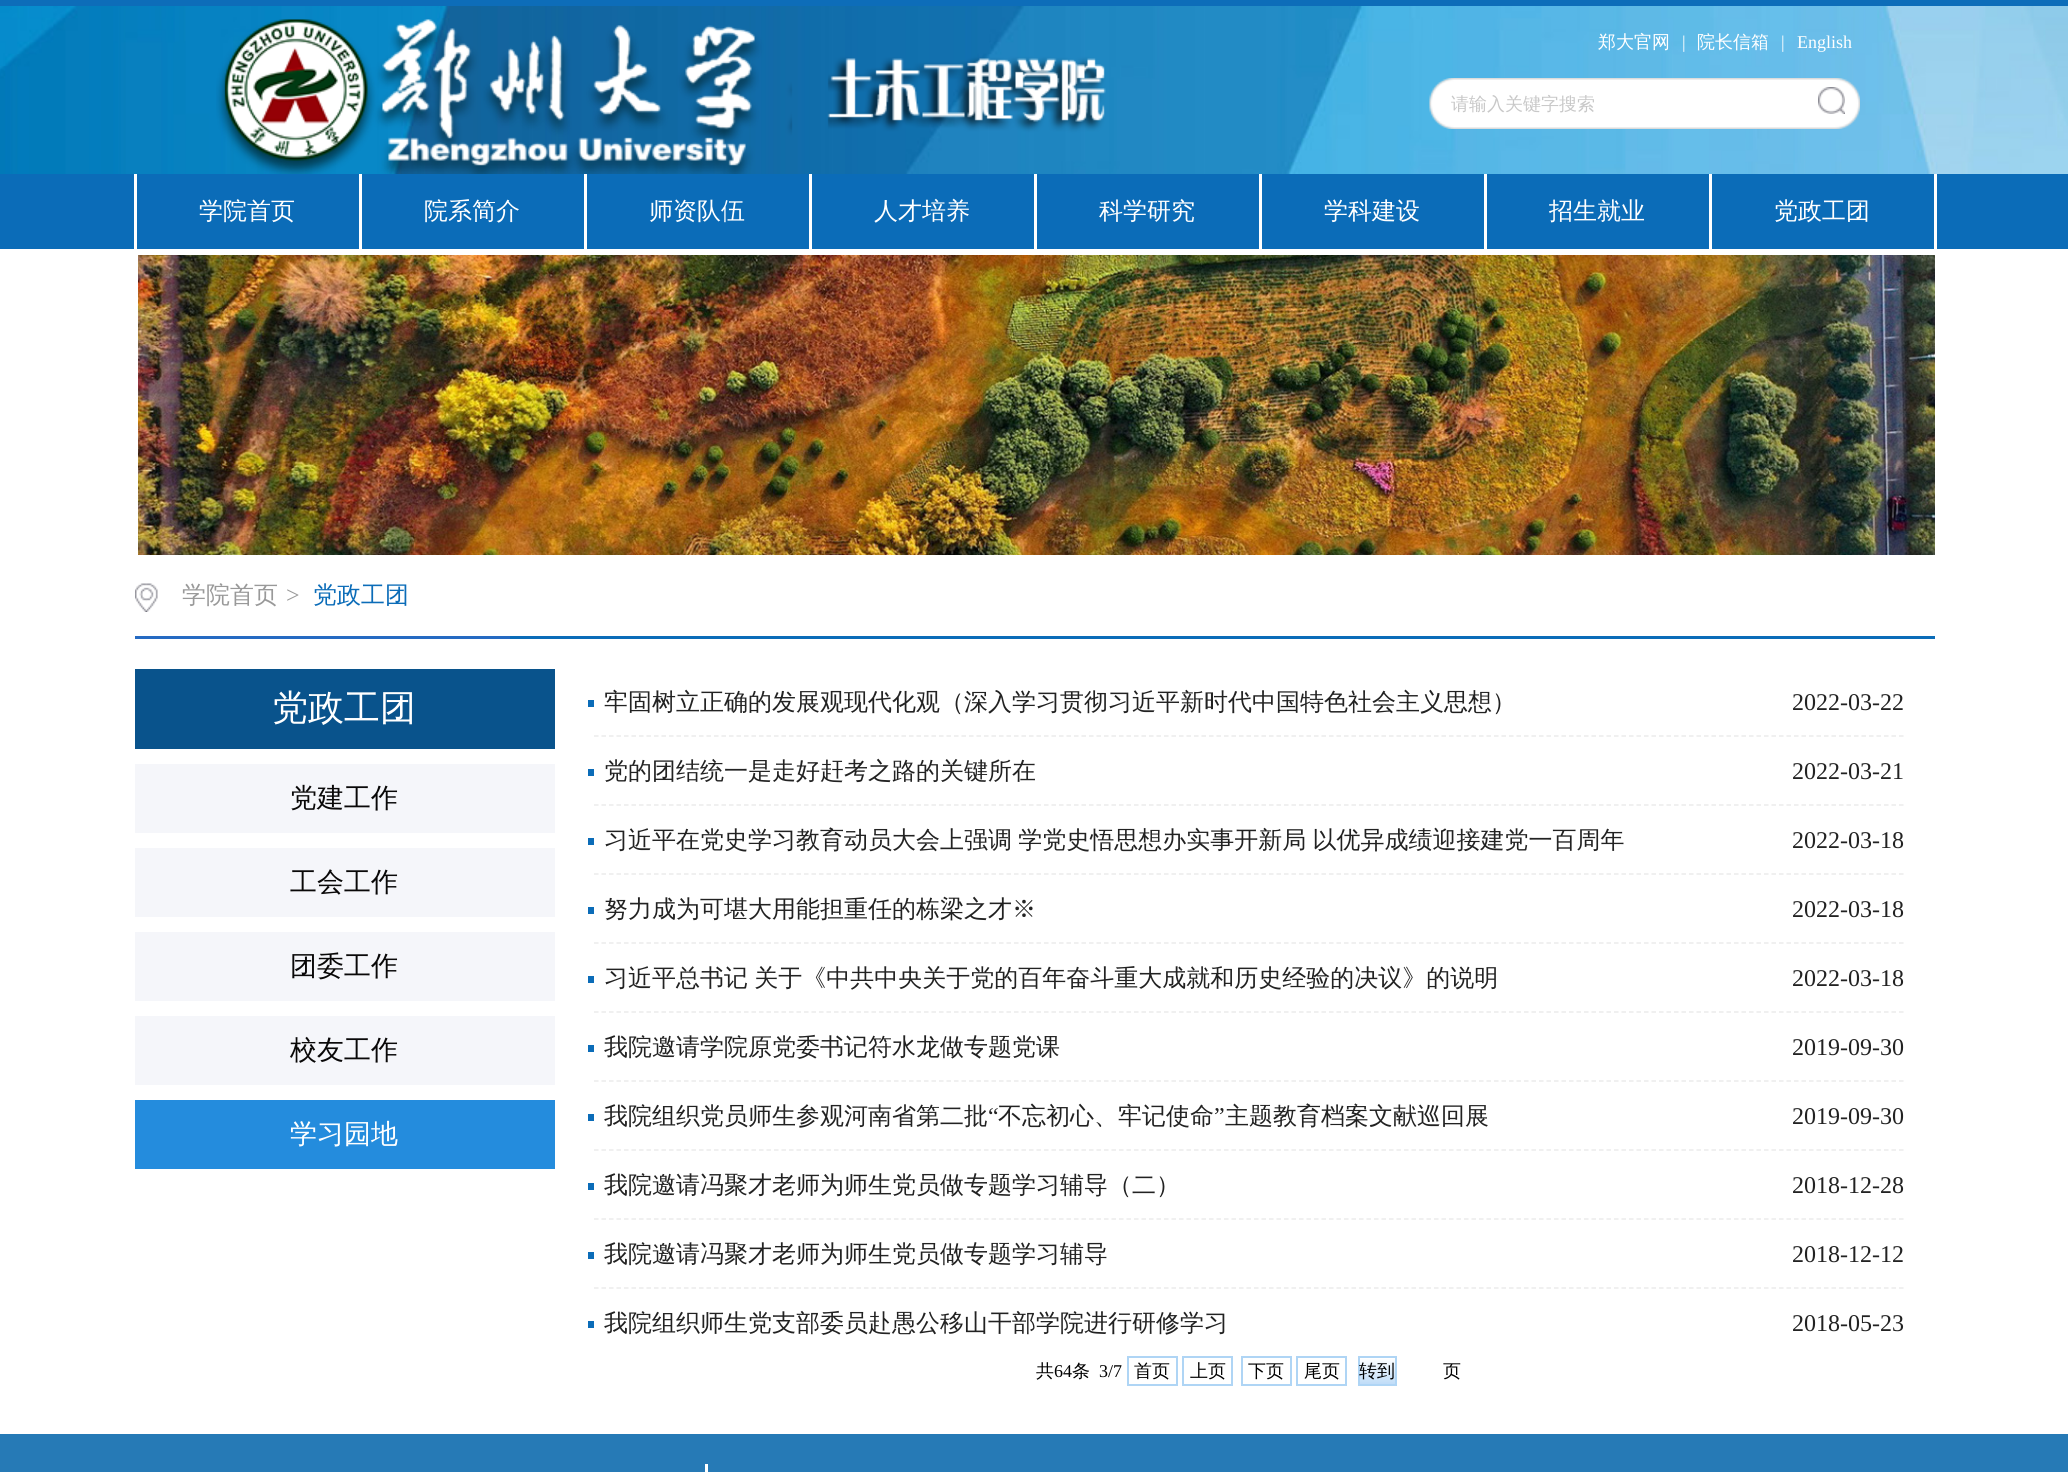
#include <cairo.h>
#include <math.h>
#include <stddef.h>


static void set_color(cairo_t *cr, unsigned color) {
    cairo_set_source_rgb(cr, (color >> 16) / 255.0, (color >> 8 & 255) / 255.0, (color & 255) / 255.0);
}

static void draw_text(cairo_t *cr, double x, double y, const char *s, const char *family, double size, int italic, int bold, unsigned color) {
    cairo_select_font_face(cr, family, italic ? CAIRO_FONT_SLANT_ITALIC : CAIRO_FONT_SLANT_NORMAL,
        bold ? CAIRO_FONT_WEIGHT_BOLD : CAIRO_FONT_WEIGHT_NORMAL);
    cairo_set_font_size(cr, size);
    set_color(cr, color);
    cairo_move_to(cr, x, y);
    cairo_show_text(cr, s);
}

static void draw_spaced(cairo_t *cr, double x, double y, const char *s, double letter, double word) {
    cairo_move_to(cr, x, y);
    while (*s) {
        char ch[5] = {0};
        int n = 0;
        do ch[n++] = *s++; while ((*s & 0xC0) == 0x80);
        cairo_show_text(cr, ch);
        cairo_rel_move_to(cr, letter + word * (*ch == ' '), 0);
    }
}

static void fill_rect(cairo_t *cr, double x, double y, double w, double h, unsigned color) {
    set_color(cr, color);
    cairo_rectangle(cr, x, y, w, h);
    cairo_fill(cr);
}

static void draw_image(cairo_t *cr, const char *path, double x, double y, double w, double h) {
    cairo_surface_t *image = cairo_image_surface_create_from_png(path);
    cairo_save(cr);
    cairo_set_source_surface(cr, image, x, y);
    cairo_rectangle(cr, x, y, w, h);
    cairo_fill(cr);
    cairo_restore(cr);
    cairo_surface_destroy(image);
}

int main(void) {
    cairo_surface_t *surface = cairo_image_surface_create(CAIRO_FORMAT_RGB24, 2068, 1472);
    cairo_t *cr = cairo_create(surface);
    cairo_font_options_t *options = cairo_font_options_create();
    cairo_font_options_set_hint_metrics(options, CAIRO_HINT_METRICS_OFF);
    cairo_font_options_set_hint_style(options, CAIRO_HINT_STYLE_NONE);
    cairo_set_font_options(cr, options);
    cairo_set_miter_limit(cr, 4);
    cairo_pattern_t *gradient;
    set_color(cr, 0xFFFFFF);
    cairo_paint(cr);
    fill_rect(cr, 0, 0, 2068, 6, 0x0D6DB9);
    draw_image(cr, "assets/img1.png", 0, 6, 2068, 168);
    draw_image(cr, "assets/img2.png", 216, 19, 890, 155);
    draw_text(cr, 1598, 48, "郑大官网", "WenQuanYi Zen Hei Medium", 18, 0, 0, 0xFFFFFF);
    draw_text(cr, 1682, 48, "|", "Liberation Serif", 18, 0, 0, 0xFFFFFF);
    draw_text(cr, 1697, 48, "院长信箱", "WenQuanYi Zen Hei Medium", 18, 0, 0, 0xFFFFFF);
    draw_text(cr, 1781, 48, "|", "Liberation Serif", 18, 0, 0, 0xFFFFFF);
    draw_text(cr, 1797, 48, "English", "Liberation Serif", 18, 0, 0, 0xFFFFFF);
    draw_image(cr, "assets/img3.png", 1429, 78, 431, 51);
    draw_text(cr, 1451, 110, "请输入关键字搜索", "WenQuanYi Zen Hei Medium", 18, 0, 0, 0xC8C8C8);
    draw_image(cr, "assets/img4.png", 1818, 87, 27, 27);
    fill_rect(cr, 0, 174, 2068, 75, 0x0B6CB8);
    fill_rect(cr, 1934, 174, 3, 75, 0xFFFFFF);
    fill_rect(cr, 134, 174, 3, 75, 0xFFFFFF);
    draw_text(cr, 199, 219, "学院首页", "WenQuanYi Zen Hei Medium", 24, 0, 0, 0xFFFFFF);
    fill_rect(cr, 359, 174, 3, 75, 0xFFFFFF);
    draw_text(cr, 424, 219, "院系简介", "WenQuanYi Zen Hei Medium", 24, 0, 0, 0xFFFFFF);
    fill_rect(cr, 584, 174, 3, 75, 0xFFFFFF);
    draw_text(cr, 649, 219, "师资队伍", "WenQuanYi Zen Hei Medium", 24, 0, 0, 0xFFFFFF);
    fill_rect(cr, 809, 174, 3, 75, 0xFFFFFF);
    draw_text(cr, 874, 219, "人才培养", "WenQuanYi Zen Hei Medium", 24, 0, 0, 0xFFFFFF);
    fill_rect(cr, 1034, 174, 3, 75, 0xFFFFFF);
    draw_text(cr, 1099, 219, "科学研究", "WenQuanYi Zen Hei Medium", 24, 0, 0, 0xFFFFFF);
    fill_rect(cr, 1259, 174, 3, 75, 0xFFFFFF);
    draw_text(cr, 1324, 219, "学科建设", "WenQuanYi Zen Hei Medium", 24, 0, 0, 0xFFFFFF);
    fill_rect(cr, 1484, 174, 3, 75, 0xFFFFFF);
    draw_text(cr, 1549, 219, "招生就业", "WenQuanYi Zen Hei Medium", 24, 0, 0, 0xFFFFFF);
    fill_rect(cr, 1709, 174, 3, 75, 0xFFFFFF);
    draw_text(cr, 1774, 219, "党政工团", "WenQuanYi Zen Hei Medium", 24, 0, 0, 0xFFFFFF);
    draw_image(cr, "assets/img5.png", 138, 255, 1797, 300);
    fill_rect(cr, 510, 636, 1425, 3, 0x0B6CB8);
    fill_rect(cr, 135, 636, 375, 3, 0x256AC2);
    draw_image(cr, "assets/img6.png", 135, 583, 23, 29);
    draw_text(cr, 182, 603, "学院首页", "WenQuanYi Zen Hei Medium", 24, 0, 0, 0x999999);
    draw_text(cr, 286, 603, ">", "Liberation Serif", 24, 0, 0, 0x999999);
    draw_text(cr, 313, 603, "党政工团", "WenQuanYi Zen Hei Medium", 24, 0, 0, 0x0B6CB8);
    fill_rect(cr, 135, 669, 420, 80, 0x09538C);
    draw_text(cr, 272, 720, "党政工团", "WenQuanYi Zen Hei Medium", 36, 0, 0, 0xFFFFFF);
    fill_rect(cr, 135, 764, 420, 69, 0xF5F6FA);
    draw_text(cr, 290, 807, "党建工作", "WenQuanYi Zen Hei Medium", 27, 0, 0, 0x090808);
    fill_rect(cr, 135, 848, 420, 69, 0xF5F6FA);
    draw_text(cr, 290, 891, "工会工作", "WenQuanYi Zen Hei Medium", 27, 0, 0, 0x090808);
    fill_rect(cr, 135, 932, 420, 69, 0xF5F6FA);
    draw_text(cr, 290, 975, "团委工作", "WenQuanYi Zen Hei Medium", 27, 0, 0, 0x090808);
    fill_rect(cr, 135, 1016, 420, 69, 0xF5F6FA);
    draw_text(cr, 290, 1059, "校友工作", "WenQuanYi Zen Hei Medium", 27, 0, 0, 0x090808);
    fill_rect(cr, 135, 1100, 420, 69, 0x248CDD);
    draw_text(cr, 290, 1143, "学习园地", "WenQuanYi Zen Hei Medium", 27, 0, 0, 0xFFFFFF);
    fill_rect(cr, 588, 700, 6, 7, 0x0B6CB8);
    draw_text(cr, 604, 710, "牢固树立正确的发展观现代化观（深入学习贯彻习近平新时代中国特色社会主义思想）", "WenQuanYi Zen Hei Medium", 24, 0, 0, 0x222222);
    draw_text(cr, 1792, 710, "2022-03-22", "Liberation Serif", 24, 0, 0, 0x222222);
    cairo_new_path(cr);
    cairo_move_to(cr, 594, 736);
    cairo_line_to(cr, 1903.5, 736);
    set_color(cr, 0xEBEBEB);
    cairo_set_line_width(cr, 1.5);
    cairo_set_dash(cr, (double[]){4.5, 3}, 2, 0);
    cairo_stroke(cr);
    fill_rect(cr, 588, 769, 6, 7, 0x0B6CB8);
    draw_text(cr, 604, 779, "党的团结统一是走好赶考之路的关键所在", "WenQuanYi Zen Hei Medium", 24, 0, 0, 0x222222);
    draw_text(cr, 1792, 779, "2022-03-21", "Liberation Serif", 24, 0, 0, 0x222222);
    cairo_new_path(cr);
    cairo_move_to(cr, 594, 805);
    cairo_line_to(cr, 1903.5, 805);
    set_color(cr, 0xEBEBEB);
    cairo_stroke(cr);
    fill_rect(cr, 588, 838, 6, 7, 0x0B6CB8);
    cairo_select_font_face(cr, "WenQuanYi Zen Hei Medium", CAIRO_FONT_SLANT_NORMAL, CAIRO_FONT_WEIGHT_NORMAL);
    set_color(cr, 0x222222);
    draw_spaced(cr, 604, 848, "习近平在党史学习教育动员大会上强调 学党史悟思想办实事开新局 以优异成绩迎接建党一百周年", 0, -1);
    draw_text(cr, 1792, 848, "2022-03-18", "Liberation Serif", 24, 0, 0, 0x222222);
    cairo_new_path(cr);
    cairo_move_to(cr, 594, 874);
    cairo_line_to(cr, 1903.5, 874);
    set_color(cr, 0xEBEBEB);
    cairo_stroke(cr);
    fill_rect(cr, 588, 907, 6, 7, 0x0B6CB8);
    draw_text(cr, 604, 917, "努力成为可堪大用能担重任的栋梁之才※", "WenQuanYi Zen Hei Medium", 24, 0, 0, 0x222222);
    draw_text(cr, 1792, 917, "2022-03-18", "Liberation Serif", 24, 0, 0, 0x222222);
    cairo_new_path(cr);
    cairo_move_to(cr, 594, 943);
    cairo_line_to(cr, 1903.5, 943);
    set_color(cr, 0xEBEBEB);
    cairo_stroke(cr);
    fill_rect(cr, 588, 976, 6, 7, 0x0B6CB8);
    cairo_select_font_face(cr, "WenQuanYi Zen Hei Medium", CAIRO_FONT_SLANT_NORMAL, CAIRO_FONT_WEIGHT_NORMAL);
    set_color(cr, 0x222222);
    draw_spaced(cr, 604, 986, "习近平总书记 关于《中共中央关于党的百年奋斗重大成就和历史经验的决议》的说明", 0, -1);
    draw_text(cr, 1792, 986, "2022-03-18", "Liberation Serif", 24, 0, 0, 0x222222);
    cairo_new_path(cr);
    cairo_move_to(cr, 594, 1012);
    cairo_line_to(cr, 1903.5, 1012);
    set_color(cr, 0xEBEBEB);
    cairo_stroke(cr);
    fill_rect(cr, 588, 1045, 6, 7, 0x0B6CB8);
    draw_text(cr, 604, 1055, "我院邀请学院原党委书记符水龙做专题党课", "WenQuanYi Zen Hei Medium", 24, 0, 0, 0x222222);
    draw_text(cr, 1792, 1055, "2019-09-30", "Liberation Serif", 24, 0, 0, 0x222222);
    cairo_new_path(cr);
    cairo_move_to(cr, 594, 1081);
    cairo_line_to(cr, 1903.5, 1081);
    set_color(cr, 0xEBEBEB);
    cairo_stroke(cr);
    fill_rect(cr, 588, 1114, 6, 7, 0x0B6CB8);
    draw_text(cr, 604, 1124, "我院组织党员师生参观河南省第二批", "WenQuanYi Zen Hei Medium", 24, 0, 0, 0x222222);
    draw_text(cr, 988, 1124, "“", "Liberation Serif", 24, 0, 0, 0x222222);
    draw_text(cr, 998, 1124, "不忘初心、牢记使命", "WenQuanYi Zen Hei Medium", 24, 0, 0, 0x222222);
    draw_text(cr, 1214, 1124, "”", "Liberation Serif", 24, 0, 0, 0x222222);
    draw_text(cr, 1225, 1124, "主题教育档案文献巡回展", "WenQuanYi Zen Hei Medium", 24, 0, 0, 0x222222);
    draw_text(cr, 1792, 1124, "2019-09-30", "Liberation Serif", 24, 0, 0, 0x222222);
    cairo_new_path(cr);
    cairo_move_to(cr, 594, 1150);
    cairo_line_to(cr, 1903.5, 1150);
    set_color(cr, 0xEBEBEB);
    cairo_stroke(cr);
    fill_rect(cr, 588, 1183, 6, 7, 0x0B6CB8);
    draw_text(cr, 604, 1193, "我院邀请冯聚才老师为师生党员做专题学习辅导（二）", "WenQuanYi Zen Hei Medium", 24, 0, 0, 0x222222);
    draw_text(cr, 1792, 1193, "2018-12-28", "Liberation Serif", 24, 0, 0, 0x222222);
    cairo_new_path(cr);
    cairo_move_to(cr, 594, 1219);
    cairo_line_to(cr, 1903.5, 1219);
    set_color(cr, 0xEBEBEB);
    cairo_stroke(cr);
    fill_rect(cr, 588, 1252, 6, 7, 0x0B6CB8);
    draw_text(cr, 604, 1262, "我院邀请冯聚才老师为师生党员做专题学习辅导", "WenQuanYi Zen Hei Medium", 24, 0, 0, 0x222222);
    draw_text(cr, 1792, 1262, "2018-12-12", "Liberation Serif", 24, 0, 0, 0x222222);
    cairo_new_path(cr);
    cairo_move_to(cr, 594, 1288);
    cairo_line_to(cr, 1903.5, 1288);
    set_color(cr, 0xEBEBEB);
    cairo_stroke(cr);
    fill_rect(cr, 588, 1321, 6, 7, 0x0B6CB8);
    draw_text(cr, 604, 1331, "我院组织师生党支部委员赴愚公移山干部学院进行研修学习", "WenQuanYi Zen Hei Medium", 24, 0, 0, 0x222222);
    draw_text(cr, 1792, 1331, "2018-05-23", "Liberation Serif", 24, 0, 0, 0x222222);
    draw_text(cr, 1036, 1377, "共", "WenQuanYi Zen Hei Medium", 18, 0, 0, 0x000000);
    draw_text(cr, 1054, 1377, "64", "Liberation Serif", 18, 0, 0, 0x000000);
    draw_text(cr, 1072, 1377, "条", "WenQuanYi Zen Hei Medium", 18, 0, 0, 0x000000);
    draw_text(cr, 1099, 1377, "3/7", "Liberation Serif", 18, 0, 0, 0x000000);
    cairo_rectangle(cr, 1128, 1357, 49, 28);
    set_color(cr, 0xAFD5F5);
    cairo_set_line_width(cr, 2);
    cairo_set_dash(cr, NULL, 0, 0);
    cairo_stroke(cr);
    draw_text(cr, 1134, 1377, "首页", "WenQuanYi Zen Hei Medium", 18, 0, 0, 0x000000);
    cairo_rectangle(cr, 1183, 1357, 49, 28);
    set_color(cr, 0xAFD5F5);
    cairo_stroke(cr);
    draw_text(cr, 1190, 1377, "上页", "WenQuanYi Zen Hei Medium", 18, 0, 0, 0x000000);
    cairo_rectangle(cr, 1242, 1357, 49, 28);
    set_color(cr, 0xAFD5F5);
    cairo_stroke(cr);
    draw_text(cr, 1248, 1377, "下页", "WenQuanYi Zen Hei Medium", 18, 0, 0, 0x000000);
    cairo_rectangle(cr, 1297, 1357, 49, 28);
    set_color(cr, 0xAFD5F5);
    cairo_stroke(cr);
    draw_text(cr, 1304, 1377, "尾页", "WenQuanYi Zen Hei Medium", 18, 0, 0, 0x000000);
    gradient = cairo_pattern_create_linear(1359, 1358, 1359, 1385);
    cairo_pattern_add_color_stop_rgba(gradient, 0, 1, 1, 1, 1);
    cairo_pattern_add_color_stop_rgba(gradient, 1, 0.741, 0.859, 0.969, 1);
    cairo_set_source(cr, gradient);
    cairo_pattern_destroy(gradient);
    cairo_rectangle(cr, 1360, 1359, 35, 25);
    cairo_fill(cr);
    cairo_rectangle(cr, 1359, 1357, 37, 28);
    set_color(cr, 0xAFD5F5);
    cairo_stroke(cr);
    draw_text(cr, 1359, 1377, "转到", "WenQuanYi Zen Hei Medium", 18, 0, 0, 0x000000);
    draw_text(cr, 1443, 1377, "页", "WenQuanYi Zen Hei Medium", 18, 0, 0, 0x000000);
    fill_rect(cr, 0, 1434, 2068, 38, 0x267AB6);
    fill_rect(cr, 705, 1464, 3, 8, 0xFFFFFF);
    cairo_surface_write_to_png(surface, "output.png");
    cairo_font_options_destroy(options);
    cairo_destroy(cr);
    cairo_surface_destroy(surface);
    return 0;
}
